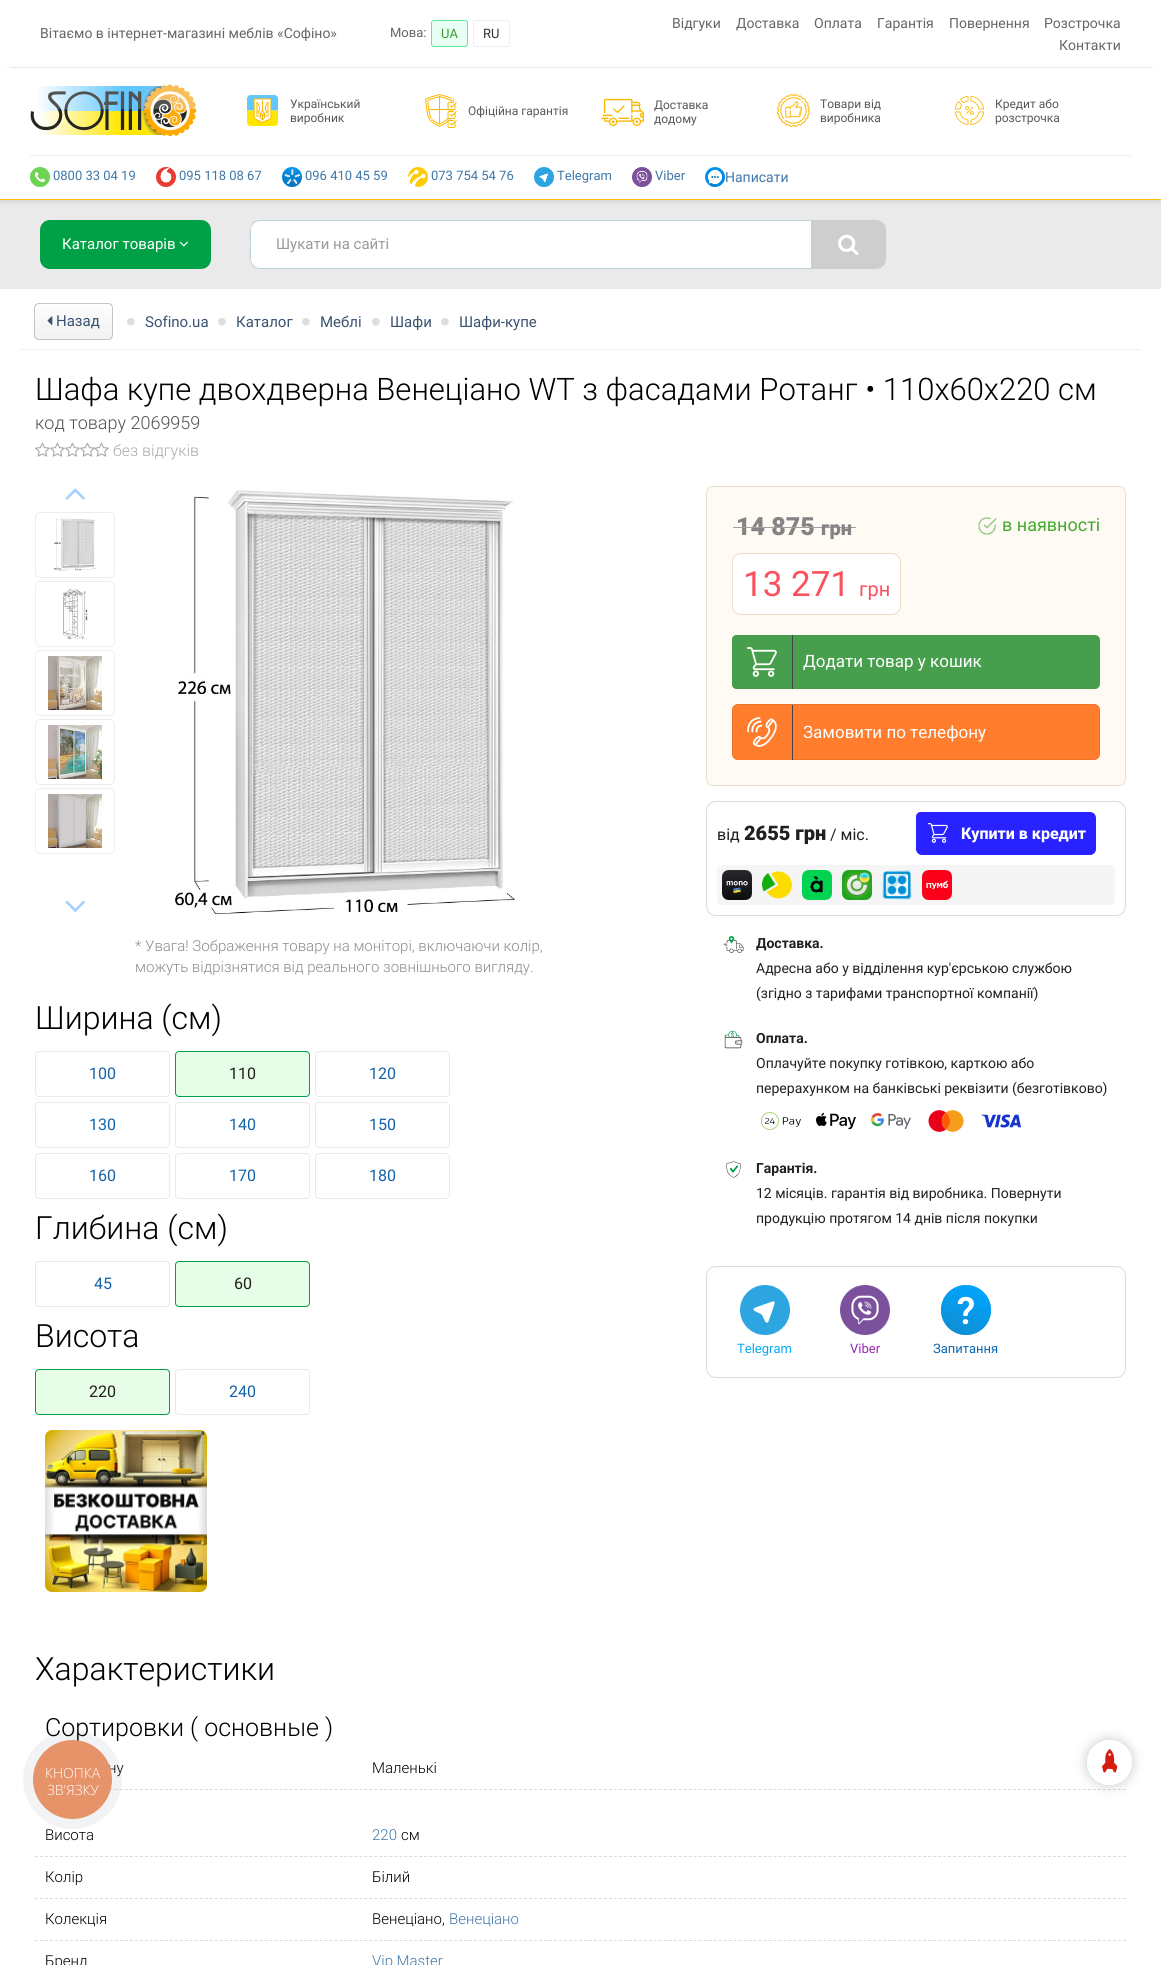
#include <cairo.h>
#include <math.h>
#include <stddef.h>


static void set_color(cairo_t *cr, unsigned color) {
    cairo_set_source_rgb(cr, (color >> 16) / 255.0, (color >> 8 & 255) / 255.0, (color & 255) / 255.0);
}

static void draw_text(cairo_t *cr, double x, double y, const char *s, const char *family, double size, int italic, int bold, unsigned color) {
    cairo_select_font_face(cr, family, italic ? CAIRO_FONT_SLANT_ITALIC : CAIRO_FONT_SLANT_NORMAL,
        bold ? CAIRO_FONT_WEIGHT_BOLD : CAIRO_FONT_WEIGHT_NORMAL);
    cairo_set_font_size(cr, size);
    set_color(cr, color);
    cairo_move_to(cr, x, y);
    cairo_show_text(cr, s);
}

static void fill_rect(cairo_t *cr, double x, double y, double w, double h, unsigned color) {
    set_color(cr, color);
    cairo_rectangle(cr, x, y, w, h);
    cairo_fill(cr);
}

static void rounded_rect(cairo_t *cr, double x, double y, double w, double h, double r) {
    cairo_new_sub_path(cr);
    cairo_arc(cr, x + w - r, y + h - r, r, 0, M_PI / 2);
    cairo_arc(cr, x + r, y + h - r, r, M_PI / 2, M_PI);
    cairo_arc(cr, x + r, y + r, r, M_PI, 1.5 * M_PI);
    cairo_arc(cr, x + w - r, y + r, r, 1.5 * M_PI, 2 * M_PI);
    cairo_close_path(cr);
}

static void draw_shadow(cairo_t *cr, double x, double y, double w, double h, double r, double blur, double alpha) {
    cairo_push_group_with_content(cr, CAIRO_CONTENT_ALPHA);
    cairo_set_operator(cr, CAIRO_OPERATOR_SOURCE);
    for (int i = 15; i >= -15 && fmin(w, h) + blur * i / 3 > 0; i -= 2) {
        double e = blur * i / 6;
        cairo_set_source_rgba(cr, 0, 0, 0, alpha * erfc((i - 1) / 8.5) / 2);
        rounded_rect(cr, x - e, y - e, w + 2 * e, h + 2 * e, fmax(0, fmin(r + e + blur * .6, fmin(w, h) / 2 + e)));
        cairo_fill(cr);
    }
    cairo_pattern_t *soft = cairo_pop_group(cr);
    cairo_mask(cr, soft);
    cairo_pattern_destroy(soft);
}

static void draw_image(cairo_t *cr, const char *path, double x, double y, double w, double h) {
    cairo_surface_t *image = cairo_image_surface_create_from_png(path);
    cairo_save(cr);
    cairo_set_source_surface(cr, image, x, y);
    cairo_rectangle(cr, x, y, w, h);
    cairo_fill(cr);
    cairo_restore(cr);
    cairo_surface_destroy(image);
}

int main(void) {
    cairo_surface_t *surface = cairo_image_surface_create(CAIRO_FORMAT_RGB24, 1161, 1965);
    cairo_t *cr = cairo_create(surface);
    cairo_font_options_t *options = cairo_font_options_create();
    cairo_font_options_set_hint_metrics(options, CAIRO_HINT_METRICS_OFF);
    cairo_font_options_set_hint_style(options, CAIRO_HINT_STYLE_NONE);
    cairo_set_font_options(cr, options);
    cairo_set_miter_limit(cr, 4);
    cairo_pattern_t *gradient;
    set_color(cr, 0xFFFFFF);
    cairo_paint(cr);
    fill_rect(cr, 10, 67, 1141, 1, 0xEEEEEE);
    draw_text(cr, 40, 38, "Вітаємо в інтернет-магазині меблів «Софіно»", "Roboto", 14, 0, 0, 0x666666);
    draw_text(cr, 390, 37, "Мова:", "Roboto", 13, 0, 0, 0x666666);
    set_color(cr, 0xEAFFF3);
    rounded_rect(cr, 431.5, 20.5, 36, 26, 2.5);
    cairo_fill_preserve(cr);
    set_color(cr, 0x61E69B);
    cairo_set_line_width(cr, 1);
    cairo_stroke(cr);
    draw_text(cr, 441, 38, "UA", "Roboto", 13, 0, 0, 0x3A9731);
    rounded_rect(cr, 473.5, 20.5, 36, 26, 2.5);
    set_color(cr, 0xEEEEEE);
    cairo_stroke(cr);
    draw_text(cr, 483, 38, "RU", "Roboto", 13, 0, 0, 0x333333);
    draw_text(cr, 672, 28, "Відгуки", "Roboto", 14, 0, 0, 0x666666);
    draw_text(cr, 736, 28, "Доставка", "Roboto", 14, 0, 0, 0x666666);
    draw_text(cr, 814, 28, "Оплата", "Roboto", 14, 0, 0, 0x666666);
    draw_text(cr, 877, 28, "Гарантія", "Roboto", 14, 0, 0, 0x666666);
    draw_text(cr, 949, 28, "Повернення", "Roboto", 14, 0, 0, 0x666666);
    draw_text(cr, 1044, 28, "Розстрочка", "Roboto", 14, 0, 0, 0x666666);
    draw_text(cr, 1059, 50, "Контакти", "Roboto", 14, 0, 0, 0x666666);
    fill_rect(cr, 0, 200, 1161, 89, 0xEAEAEA);
    set_color(cr, 0x000000);
    draw_shadow(cr, 0, 70, 1161, 132, 0, 2.5, 0.1);
    fill_rect(cr, 0, 68, 1161, 131, 0xFFFFFF);
    fill_rect(cr, 0, 199, 1161, 1, 0xFFC107);
    draw_image(cr, "assets/img1.png", 30, 84, 167, 53);
    draw_image(cr, "assets/img2.png", 247, 95, 31, 31);
    draw_text(cr, 290, 108, "Український", "Roboto", 12, 0, 0, 0x585858);
    draw_text(cr, 290, 122, "виробник", "Roboto", 12, 0, 0, 0x585858);
    draw_image(cr, "assets/img3.png", 425, 94, 32, 34);
    draw_text(cr, 468, 115, "Офіційна гарантія", "Roboto", 12, 0, 0, 0x585858);
    draw_image(cr, "assets/img4.png", 601, 98, 43, 29);
    draw_text(cr, 654, 109, "Доставка", "Roboto", 12, 0, 0, 0x585858);
    draw_text(cr, 654, 123, "додому", "Roboto", 12, 0, 0, 0x585858);
    draw_image(cr, "assets/img5.png", 777, 94, 33, 33);
    draw_text(cr, 820, 108, "Товари від", "Roboto", 12, 0, 0, 0x585858);
    draw_text(cr, 820, 122, "виробника", "Roboto", 12, 0, 0, 0x585858);
    draw_image(cr, "assets/img6.png", 954, 96, 30, 29);
    draw_text(cr, 995, 108, "Кредит або", "Roboto", 12, 0, 0, 0x585858);
    draw_text(cr, 995, 122, "розстрочка", "Roboto", 12, 0, 0, 0x585858);
    fill_rect(cr, 30, 155, 1101, 1, 0xEEEEEE);
    draw_image(cr, "assets/img7.png", 30, 167, 20, 20);
    draw_text(cr, 53, 180, "0800 33 04 19", "Roboto", 13, 0, 0, 0x3E77AA);
    draw_image(cr, "assets/img8.png", 156, 167, 20, 20);
    draw_text(cr, 179, 180, "095 118 08 67", "Roboto", 13, 0, 0, 0x3E77AA);
    draw_image(cr, "assets/img9.png", 282, 167, 20, 20);
    draw_text(cr, 305, 180, "096 410 45 59", "Roboto", 13, 0, 0, 0x3E77AA);
    draw_image(cr, "assets/img10.png", 408, 167, 20, 20);
    draw_text(cr, 431, 180, "073 754 54 76", "Roboto", 13, 0, 0, 0x3E77AA);
    draw_image(cr, "assets/img11.png", 534, 167, 20, 20);
    draw_text(cr, 557, 180, "Telegram", "Roboto", 13, 0, 0, 0x3E77AA);
    draw_image(cr, "assets/img12.png", 632, 167, 20, 20);
    draw_text(cr, 655, 180, "Viber", "Roboto", 13, 0, 0, 0x3E77AA);
    draw_image(cr, "assets/img13.png", 705, 167, 20, 20);
    draw_text(cr, 725, 182, "Написати", "Roboto", 14, 0, 0, 0x3E77AA);
    set_color(cr, 0x00A046);
    rounded_rect(cr, 41, 221, 169, 47, 9);
    cairo_fill_preserve(cr);
    cairo_set_line_width(cr, 2);
    cairo_stroke(cr);
    draw_text(cr, 62, 249, "Каталог товарів", "Roboto", 15, 0, 0, 0xFFFFFF);
    draw_image(cr, "assets/img14.png", 179, 241, 9, 6);
    cairo_new_path(cr);
    cairo_move_to(cr, 260, 220);
    cairo_line_to(cr, 811, 220);
    cairo_line_to(cr, 811, 269);
    cairo_line_to(cr, 260, 269);
    cairo_curve_to(cr, 254.5, 269, 250, 264.5, 250, 259);
    cairo_line_to(cr, 250, 230);
    cairo_curve_to(cr, 250, 224.5, 254.5, 220, 260, 220);
    cairo_close_path(cr);
    cairo_fill(cr);
    set_color(cr, 0xBED3DB);
    cairo_set_fill_rule(cr, CAIRO_FILL_RULE_EVEN_ODD);
    cairo_new_path(cr);
    cairo_move_to(cr, 260, 220);
    cairo_line_to(cr, 811, 220);
    cairo_line_to(cr, 811, 269);
    cairo_line_to(cr, 260, 269);
    cairo_curve_to(cr, 247, 269, 250, 253, 250, 244);
    cairo_curve_to(cr, 250, 236, 247, 220, 260, 220);
    cairo_close_path(cr);
    cairo_move_to(cr, 260, 221);
    cairo_line_to(cr, 811, 221);
    cairo_line_to(cr, 811, 268);
    cairo_line_to(cr, 260, 268);
    cairo_curve_to(cr, 255, 268, 251, 264, 251, 259);
    cairo_line_to(cr, 251, 230);
    cairo_curve_to(cr, 251, 225, 255, 221, 260, 221);
    cairo_close_path(cr);
    cairo_fill(cr);
    draw_text(cr, 276, 249, "Шукати на сайті", "Roboto", 15, 0, 0, 0x999999);
    set_color(cr, 0xCECECE);
    cairo_new_path(cr);
    cairo_move_to(cr, 811, 220);
    cairo_line_to(cr, 876, 220);
    cairo_curve_to(cr, 881.5, 220, 886, 224.5, 886, 230);
    cairo_line_to(cr, 886, 259);
    cairo_curve_to(cr, 886, 264.5, 881.5, 269, 876, 269);
    cairo_line_to(cr, 811, 269);
    cairo_close_path(cr);
    cairo_fill(cr);
    draw_image(cr, "assets/img15.png", 838, 234, 21, 21);
    fill_rect(cr, 20, 349, 1121, 1, 0xF1F1F1);
    set_color(cr, 0x000000);
    draw_shadow(cr, 35, 304, 77, 35, 3, 0.5, 0.93);
    gradient = cairo_pattern_create_linear(74, 304, 74, 339);
    cairo_pattern_add_color_stop_rgba(gradient, 0, 0.969, 0.969, 0.969, 1);
    cairo_pattern_add_color_stop_rgba(gradient, 0.01, 0.992, 0.992, 0.992, 1);
    cairo_pattern_add_color_stop_rgba(gradient, 0.02, 0.992, 0.992, 0.992, 1);
    cairo_pattern_add_color_stop_rgba(gradient, 1, 0.945, 0.945, 0.945, 1);
    cairo_set_source(cr, gradient);
    cairo_pattern_destroy(gradient);
    rounded_rect(cr, 35, 304, 77, 35, 3);
    cairo_fill(cr);
    draw_image(cr, "assets/img16.png", 47, 316, 6, 9);
    draw_text(cr, 56, 326, "Назад", "Roboto", 15, 0, 0, 0x3A5271);
    draw_image(cr, "assets/img17.png", 127, 318, 8, 8);
    draw_text(cr, 145, 327, "Sofino.ua", "Roboto", 15, 0, 0, 0x3A5271);
    draw_image(cr, "assets/img17.png", 218, 318, 8, 8);
    draw_text(cr, 236, 327, "Каталог", "Roboto", 15, 0, 0, 0x3A5271);
    draw_image(cr, "assets/img17.png", 302, 318, 8, 8);
    draw_text(cr, 320, 327, "Меблі", "Roboto", 15, 0, 0, 0x3A5271);
    draw_image(cr, "assets/img17.png", 372, 318, 8, 8);
    draw_text(cr, 390, 327, "Шафи", "Roboto", 15, 0, 0, 0x3A5271);
    draw_image(cr, "assets/img17.png", 441, 318, 8, 8);
    draw_text(cr, 459, 327, "Шафи-купе", "Roboto", 15, 0, 0, 0x3A5271);
    draw_text(cr, 35, 400, "Шафа купе двохдверна Венеціано WT з фасадами Ротанг • 110x60x220 см", "Roboto Light", 31, 0, 0, 0x000000);
    draw_text(cr, 35, 429, "код товару 2069959", "Roboto Light", 18, 0, 0, 0x515151);
    draw_image(cr, "assets/img18.png", 35, 442, 15, 15);
    draw_image(cr, "assets/img18.png", 50, 442, 15, 15);
    draw_image(cr, "assets/img18.png", 65, 442, 15, 15);
    draw_image(cr, "assets/img18.png", 80, 442, 15, 15);
    draw_image(cr, "assets/img19.png", 94, 442, 15, 15);
    draw_text(cr, 113, 456, "без відгуків", "Roboto Light", 16, 0, 0, 0xABABAB);
    draw_image(cr, "assets/img20.png", 65, 488, 20, 12);
    rounded_rect(cr, 35.5, 512.5, 79, 65, 4.5);
    set_color(cr, 0xEEEEEE);
    cairo_set_line_width(cr, 1);
    cairo_stroke(cr);
    draw_image(cr, "assets/img21.png", 54, 518, 42, 53);
    rounded_rect(cr, 35.5, 581.5, 79, 65, 4.5);
    cairo_stroke(cr);
    draw_image(cr, "assets/img22.png", 62, 589, 26, 50);
    rounded_rect(cr, 35.5, 650.5, 79, 65, 4.5);
    cairo_stroke(cr);
    draw_image(cr, "assets/img23.png", 48, 656, 54, 54);
    rounded_rect(cr, 35.5, 719.5, 79, 65, 4.5);
    cairo_stroke(cr);
    draw_image(cr, "assets/img24.png", 48, 725, 54, 54);
    rounded_rect(cr, 35.5, 788.5, 79, 65, 4.5);
    cairo_stroke(cr);
    draw_image(cr, "assets/img25.png", 48, 794, 54, 54);
    draw_image(cr, "assets/img26.png", 65, 900, 20, 12);
    draw_image(cr, "assets/img27.png", 175, 490, 340, 424);
    draw_text(cr, 135, 951, "* Увага! Зображення товару на моніторі, включаючи колір,", "Roboto Light", 15, 0, 0, 0x8C8C8C);
    draw_text(cr, 135, 972, "можуть відрізнятися від реального зовнішнього вигляду.", "Roboto Light", 15, 0, 0, 0x8C8C8C);
    draw_text(cr, 35, 1029, "Ширина (см)", "Roboto Light", 32, 0, 0, 0x000000);
    rounded_rect(cr, 35.5, 1051.5, 134, 45, 3.5);
    set_color(cr, 0xE9E9E9);
    cairo_stroke(cr);
    draw_text(cr, 89, 1079, "100", "Roboto", 16, 0, 0, 0x1463A9);
    set_color(cr, 0xE6FDE8);
    rounded_rect(cr, 175.5, 1051.5, 134, 45, 3.5);
    cairo_fill_preserve(cr);
    set_color(cr, 0x00A046);
    cairo_stroke(cr);
    draw_text(cr, 229, 1079, "110", "Roboto", 16, 0, 0, 0x221F1F);
    rounded_rect(cr, 315.5, 1051.5, 134, 45, 3.5);
    set_color(cr, 0xE9E9E9);
    cairo_stroke(cr);
    draw_text(cr, 369, 1079, "120", "Roboto", 16, 0, 0, 0x1463A9);
    rounded_rect(cr, 35.5, 1102.5, 134, 45, 3.5);
    set_color(cr, 0xE9E9E9);
    cairo_stroke(cr);
    draw_text(cr, 89, 1130, "130", "Roboto", 16, 0, 0, 0x1463A9);
    rounded_rect(cr, 175.5, 1102.5, 134, 45, 3.5);
    set_color(cr, 0xE9E9E9);
    cairo_stroke(cr);
    draw_text(cr, 229, 1130, "140", "Roboto", 16, 0, 0, 0x1463A9);
    rounded_rect(cr, 315.5, 1102.5, 134, 45, 3.5);
    set_color(cr, 0xE9E9E9);
    cairo_stroke(cr);
    draw_text(cr, 369, 1130, "150", "Roboto", 16, 0, 0, 0x1463A9);
    rounded_rect(cr, 35.5, 1153.5, 134, 45, 3.5);
    set_color(cr, 0xE9E9E9);
    cairo_stroke(cr);
    draw_text(cr, 89, 1181, "160", "Roboto", 16, 0, 0, 0x1463A9);
    rounded_rect(cr, 175.5, 1153.5, 134, 45, 3.5);
    set_color(cr, 0xE9E9E9);
    cairo_stroke(cr);
    draw_text(cr, 229, 1181, "170", "Roboto", 16, 0, 0, 0x1463A9);
    rounded_rect(cr, 315.5, 1153.5, 134, 45, 3.5);
    set_color(cr, 0xE9E9E9);
    cairo_stroke(cr);
    draw_text(cr, 369, 1181, "180", "Roboto", 16, 0, 0, 0x1463A9);
    draw_text(cr, 35, 1239, "Глибина (см)", "Roboto Light", 32, 0, 0, 0x000000);
    rounded_rect(cr, 35.5, 1261.5, 134, 45, 3.5);
    set_color(cr, 0xE9E9E9);
    cairo_stroke(cr);
    draw_text(cr, 94, 1289, "45", "Roboto", 16, 0, 0, 0x1463A9);
    set_color(cr, 0xE6FDE8);
    rounded_rect(cr, 175.5, 1261.5, 134, 45, 3.5);
    cairo_fill_preserve(cr);
    set_color(cr, 0x00A046);
    cairo_stroke(cr);
    draw_text(cr, 234, 1289, "60", "Roboto", 16, 0, 0, 0x221F1F);
    draw_text(cr, 35, 1347, "Висота", "Roboto Light", 32, 0, 0, 0x000000);
    set_color(cr, 0xE6FDE8);
    rounded_rect(cr, 35.5, 1369.5, 134, 45, 3.5);
    cairo_fill_preserve(cr);
    set_color(cr, 0x00A046);
    cairo_stroke(cr);
    draw_text(cr, 89, 1397, "220", "Roboto", 16, 0, 0, 0x221F1F);
    rounded_rect(cr, 175.5, 1369.5, 134, 45, 3.5);
    set_color(cr, 0xE9E9E9);
    cairo_stroke(cr);
    draw_text(cr, 229, 1397, "240", "Roboto", 16, 0, 0, 0x1463A9);
    set_color(cr, 0xFFFBF4);
    rounded_rect(cr, 706.5, 486.5, 419, 299, 6.5);
    cairo_fill_preserve(cr);
    set_color(cr, 0xE7E0D1);
    cairo_stroke(cr);
    draw_text(cr, 736, 535, "14 875", "Roboto Black", 25, 0, 0, 0x858383);
    fill_rect(cr, 733, 527, 123, 1, 0xA0A0A0);
    draw_text(cr, 821, 535, "грн", "Roboto Black", 20, 0, 0, 0x858383);
    set_color(cr, 0xFFFFFF);
    rounded_rect(cr, 732.5, 553.5, 168, 61, 8.5);
    cairo_fill_preserve(cr);
    set_color(cr, 0xECDEC6);
    cairo_stroke(cr);
    draw_text(cr, 743, 596, "13 271", "Roboto", 35, 0, 0, 0xFB515D);
    draw_text(cr, 859, 596, "грн", "Roboto", 20, 0, 0, 0xFB515D);
    draw_image(cr, "assets/img28.png", 978, 517, 19, 18);
    draw_text(cr, 1002, 531, "в наявності", "Roboto", 18, 0, 0, 0x43AA2E);
    set_color(cr, 0x479E4D);
    rounded_rect(cr, 732, 635, 368, 54, 5);
    cairo_fill(cr);
    cairo_new_path(cr);
    cairo_move_to(cr, 737, 635);
    cairo_line_to(cr, 793, 635);
    cairo_line_to(cr, 793, 689);
    cairo_line_to(cr, 737, 689);
    cairo_curve_to(cr, 734, 689, 732, 687, 732, 684);
    cairo_line_to(cr, 732, 640);
    cairo_curve_to(cr, 732, 637, 734, 635, 737, 635);
    cairo_close_path(cr);
    cairo_fill(cr);
    fill_rect(cr, 792, 635, 1, 54, 0x454348);
    draw_image(cr, "assets/img29.png", 747, 647, 30, 30);
    draw_text(cr, 803, 667, "Додати товар у кошик", "Roboto", 17, 0, 0, 0xFFFFFF);
    set_color(cr, 0xFF7D2D);
    rounded_rect(cr, 732, 704, 368, 56, 6);
    cairo_fill(cr);
    rounded_rect(cr, 732.5, 704.5, 367, 55, 5.5);
    cairo_set_source_rgba(cr, 0.133, 0.122, 0.122, 0.1);
    cairo_stroke(cr);
    set_color(cr, 0xFF7D2D);
    cairo_new_path(cr);
    cairo_move_to(cr, 738, 705);
    cairo_line_to(cr, 793, 705);
    cairo_line_to(cr, 793, 760);
    cairo_line_to(cr, 738, 760);
    cairo_curve_to(cr, 735, 760, 733, 758, 733, 755);
    cairo_line_to(cr, 733, 710);
    cairo_curve_to(cr, 733, 707, 735, 705, 738, 705);
    cairo_close_path(cr);
    cairo_fill(cr);
    fill_rect(cr, 792, 705, 1, 55, 0x454348);
    draw_image(cr, "assets/img30.png", 747, 717, 30, 30);
    draw_text(cr, 803, 738, "Замовити по телефону", "Roboto", 17, 0, 0, 0xFFFFFF);
    rounded_rect(cr, 706.5, 801.5, 419, 114, 9.5);
    set_color(cr, 0xDCDCDC);
    cairo_stroke(cr);
    draw_text(cr, 717, 840, "від", "Roboto", 16, 0, 0, 0x221F1F);
    draw_text(cr, 744, 840, "2655 грн", "Roboto Black", 20, 0, 0, 0x221F1F);
    draw_text(cr, 830, 840, "/ міс.", "Roboto", 16, 0, 0, 0x221F1F);
    set_color(cr, 0x2722FF);
    rounded_rect(cr, 916, 812, 180, 43, 6);
    cairo_fill(cr);
    cairo_new_path(cr);
    cairo_move_to(cr, 921, 812);
    cairo_line_to(cr, 961, 812);
    cairo_line_to(cr, 961, 849);
    cairo_line_to(cr, 921, 849);
    cairo_curve_to(cr, 918, 849, 916, 847, 916, 844);
    cairo_line_to(cr, 916, 817);
    cairo_curve_to(cr, 916, 814, 918, 812, 921, 812);
    cairo_close_path(cr);
    cairo_fill(cr);
    draw_image(cr, "assets/img31.png", 928, 823, 20, 20);
    draw_text(cr, 961, 839, "Купити в кредит", "Roboto ExtraBold", 16, 0, 0, 0xFFFFFF);
    set_color(cr, 0xF5F5F5);
    rounded_rect(cr, 717, 865, 398, 40, 5);
    cairo_fill(cr);
    draw_image(cr, "assets/img32.png", 722, 870, 30, 30);
    draw_image(cr, "assets/img33.png", 762, 871, 30, 28);
    draw_image(cr, "assets/img34.png", 802, 870, 30, 30);
    draw_image(cr, "assets/img35.png", 842, 870, 30, 30);
    draw_image(cr, "assets/img36.png", 882, 870, 30, 30);
    draw_image(cr, "assets/img37.png", 922, 870, 30, 30);
    draw_image(cr, "assets/img38.png", 723, 936, 21, 17);
    draw_text(cr, 756, 948, "Доставка.", "Roboto", 14, 0, 1, 0x221F1F);
    draw_text(cr, 756, 973, "Адресна або у відділення кур'єрською службою", "Roboto", 14, 0, 0, 0x221F1F);
    draw_text(cr, 756, 998, "(згідно з тарифами транспортної компанії)", "Roboto", 14, 0, 0, 0x221F1F);
    draw_image(cr, "assets/img39.png", 724, 1030, 19, 19);
    draw_text(cr, 756, 1043, "Оплата.", "Roboto", 14, 0, 1, 0x221F1F);
    draw_text(cr, 756, 1068, "Оплачуйте покупку готівкою, карткою або", "Roboto", 14, 0, 0, 0x221F1F);
    draw_text(cr, 756, 1093, "перерахунком на банківські реквізити (безготівково)", "Roboto", 14, 0, 0, 0x221F1F);
    draw_image(cr, "assets/img40.png", 761, 1112, 40, 18);
    draw_image(cr, "assets/img41.png", 816, 1112, 40, 18);
    draw_image(cr, "assets/img42.png", 871, 1113, 40, 16);
    draw_image(cr, "assets/img43.png", 928, 1110, 36, 22);
    draw_image(cr, "assets/img44.png", 981, 1114, 40, 14);
    draw_image(cr, "assets/img45.png", 726, 1161, 15, 17);
    draw_text(cr, 756, 1173, "Гарантія.", "Roboto", 14, 0, 1, 0x221F1F);
    draw_text(cr, 756, 1198, "12 місяців. гарантія від виробника. Повернути", "Roboto", 14, 0, 0, 0x221F1F);
    draw_text(cr, 756, 1223, "продукцію протягом 14 днів після покупки", "Roboto", 14, 0, 0, 0x221F1F);
    rounded_rect(cr, 706.5, 1266.5, 419, 111, 9.5);
    set_color(cr, 0xDCDCDC);
    cairo_stroke(cr);
    draw_image(cr, "assets/img46.png", 740, 1285, 50, 50);
    draw_text(cr, 737, 1353, "Telegram", "Roboto", 13, 0, 0, 0x03A9F4);
    draw_image(cr, "assets/img47.png", 840, 1285, 50, 50);
    draw_text(cr, 850, 1353, "Viber", "Roboto", 13, 0, 0, 0x9C27B0);
    draw_image(cr, "assets/img48.png", 941, 1285, 50, 50);
    draw_text(cr, 933, 1353, "Запитання", "Roboto", 13, 0, 0, 0x0B66AF);
    draw_image(cr, "assets/img49.png", 45, 1430, 162, 162);
    draw_text(cr, 35, 1680, "Характеристики", "Roboto Light", 32, 0, 0, 0x000000);
    draw_text(cr, 45, 1736, "Сортировки ( основные )", "Roboto Light", 25, 0, 0, 0x000000);
    cairo_new_path(cr);
    cairo_move_to(cr, 35, 1789.5);
    cairo_line_to(cr, 1126, 1789.5);
    set_color(cr, 0xDBDBDB);
    cairo_set_dash(cr, (double[]){3, 1.99}, 2, 0);
    cairo_stroke(cr);
    draw_text(cr, 108, 1773, "ну", "Roboto Light", 15, 0, 0, 0x000000);
    draw_text(cr, 372, 1773, "Маленькі", "Roboto Light", 15, 0, 0, 0x000000);
    cairo_new_path(cr);
    cairo_move_to(cr, 35, 1856.5);
    cairo_line_to(cr, 1126, 1856.5);
    set_color(cr, 0xDBDBDB);
    cairo_stroke(cr);
    draw_text(cr, 45, 1840, "Висота", "Roboto Light", 15, 0, 0, 0x000000);
    draw_text(cr, 372, 1840, "220", "Roboto Light", 15, 0, 0, 0x3E77AA);
    draw_text(cr, 401, 1840, "см", "Roboto Light", 15, 0, 0, 0x000000);
    cairo_new_path(cr);
    cairo_move_to(cr, 35, 1898.5);
    cairo_line_to(cr, 1126, 1898.5);
    set_color(cr, 0xDBDBDB);
    cairo_stroke(cr);
    draw_text(cr, 45, 1882, "Колір", "Roboto Light", 15, 0, 0, 0x000000);
    draw_text(cr, 372, 1882, "Білий", "Roboto Light", 15, 0, 0, 0x000000);
    cairo_new_path(cr);
    cairo_move_to(cr, 35, 1940.5);
    cairo_line_to(cr, 1126, 1940.5);
    set_color(cr, 0xDBDBDB);
    cairo_stroke(cr);
    draw_text(cr, 45, 1924, "Колекція", "Roboto Light", 15, 0, 0, 0x000000);
    draw_text(cr, 372, 1924, "Венеціано,", "Roboto Light", 15, 0, 0, 0x000000);
    draw_text(cr, 449, 1924, "Венеціано", "Roboto Light", 15, 0, 0, 0x3E77AA);
    draw_text(cr, 45, 1966, "Бренд", "Roboto Light", 15, 0, 0, 0x000000);
    draw_text(cr, 372, 1966, "Vip Master", "Roboto Light", 15, 0, 0, 0x3E77AA);
    cairo_save(cr);
    cairo_new_path(cr);
    cairo_move_to(cr, 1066, 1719);
    cairo_line_to(cr, 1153, 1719);
    cairo_line_to(cr, 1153, 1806);
    cairo_line_to(cr, 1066, 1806);
    cairo_close_path(cr);
    cairo_move_to(cr, 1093.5, 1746.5);
    cairo_curve_to(cr, 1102.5, 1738, 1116.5, 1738, 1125.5, 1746.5);
    cairo_curve_to(cr, 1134, 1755.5, 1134, 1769.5, 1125.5, 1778.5);
    cairo_curve_to(cr, 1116.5, 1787, 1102.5, 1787, 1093.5, 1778.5);
    cairo_curve_to(cr, 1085, 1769.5, 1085, 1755.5, 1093.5, 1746.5);
    cairo_close_path(cr);
    cairo_clip(cr);
    set_color(cr, 0x000000);
    draw_shadow(cr, 1087, 1740, 45, 45, 22.5, 6.5, 0.21);
    cairo_restore(cr);
    cairo_set_source_rgba(cr, 1, 1, 1, 0.9);
    cairo_set_fill_rule(cr, CAIRO_FILL_RULE_WINDING);
    cairo_new_path(cr);
    cairo_move_to(cr, 1094, 1747);
    cairo_curve_to(cr, 1115, 1726, 1146, 1757, 1125, 1778);
    cairo_curve_to(cr, 1104, 1799, 1073, 1768, 1094, 1747);
    cairo_close_path(cr);
    cairo_fill(cr);
    draw_image(cr, "assets/img50.png", 1102, 1749, 16, 24);
    cairo_set_source_rgba(cr, 0.165, 0.251, 0.365, 0.06);
    cairo_arc(cr, 72.5, 1779.5, 49.5, 0, 2 * M_PI);
    cairo_fill(cr);
    set_color(cr, 0xE6936A);
    cairo_arc(cr, 72.5, 1779.5, 39.5, 0, 2 * M_PI);
    cairo_fill(cr);
    draw_text(cr, 45, 1778, "КНОПКА", "Open Sans Light", 14, 0, 0, 0xFFFFFF);
    draw_text(cr, 47, 1795, "ЗВ'ЯЗКУ", "Open Sans Light", 14, 0, 0, 0xFFFFFF);
    cairo_surface_write_to_png(surface, "output.png");
    cairo_font_options_destroy(options);
    cairo_destroy(cr);
    cairo_surface_destroy(surface);
    return 0;
}
